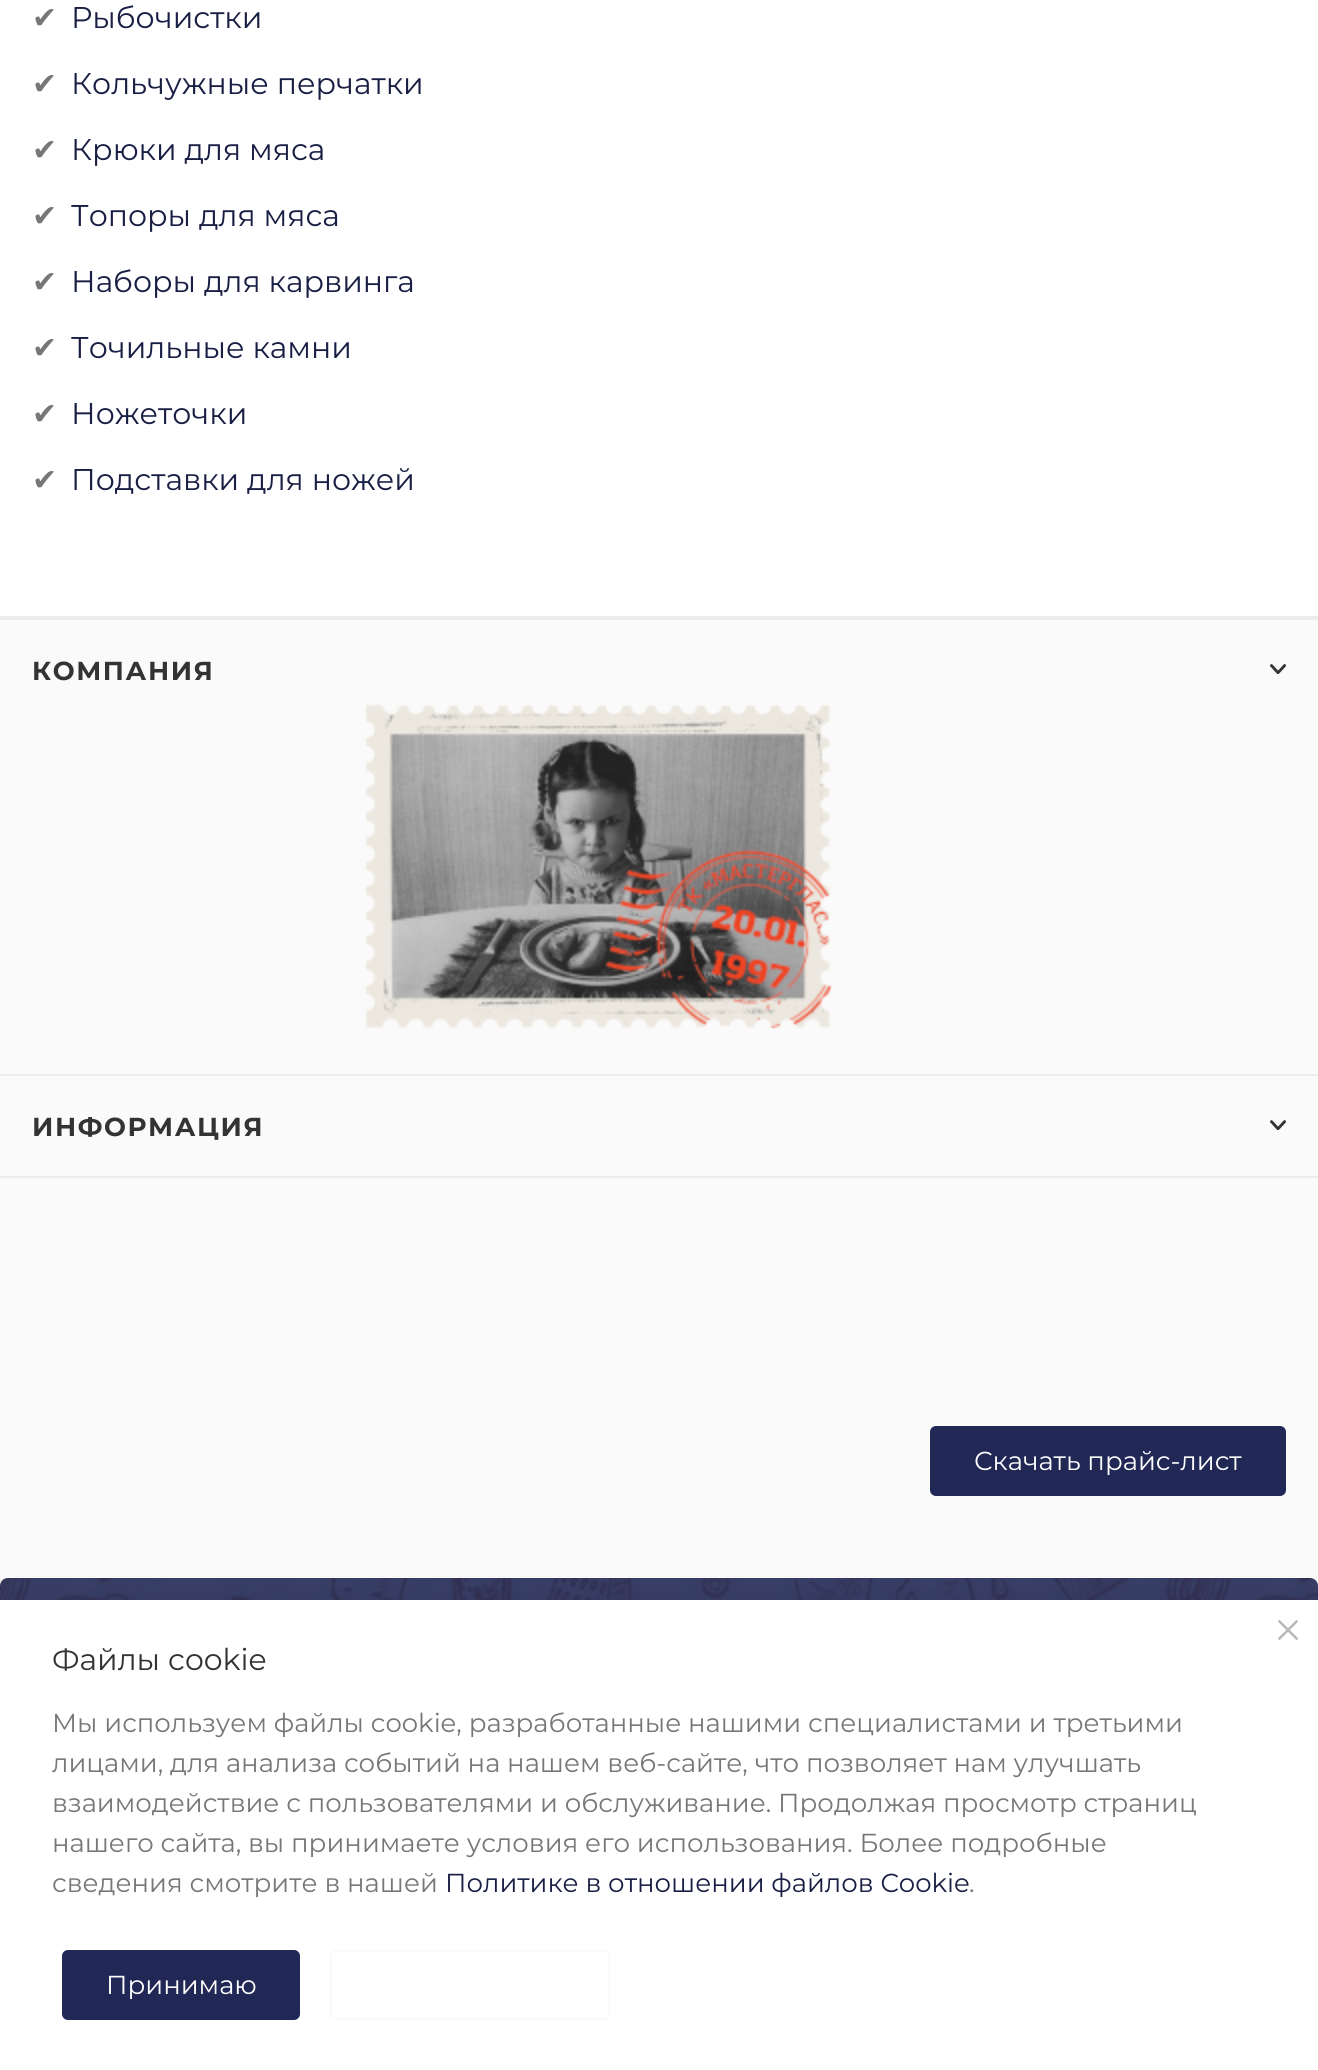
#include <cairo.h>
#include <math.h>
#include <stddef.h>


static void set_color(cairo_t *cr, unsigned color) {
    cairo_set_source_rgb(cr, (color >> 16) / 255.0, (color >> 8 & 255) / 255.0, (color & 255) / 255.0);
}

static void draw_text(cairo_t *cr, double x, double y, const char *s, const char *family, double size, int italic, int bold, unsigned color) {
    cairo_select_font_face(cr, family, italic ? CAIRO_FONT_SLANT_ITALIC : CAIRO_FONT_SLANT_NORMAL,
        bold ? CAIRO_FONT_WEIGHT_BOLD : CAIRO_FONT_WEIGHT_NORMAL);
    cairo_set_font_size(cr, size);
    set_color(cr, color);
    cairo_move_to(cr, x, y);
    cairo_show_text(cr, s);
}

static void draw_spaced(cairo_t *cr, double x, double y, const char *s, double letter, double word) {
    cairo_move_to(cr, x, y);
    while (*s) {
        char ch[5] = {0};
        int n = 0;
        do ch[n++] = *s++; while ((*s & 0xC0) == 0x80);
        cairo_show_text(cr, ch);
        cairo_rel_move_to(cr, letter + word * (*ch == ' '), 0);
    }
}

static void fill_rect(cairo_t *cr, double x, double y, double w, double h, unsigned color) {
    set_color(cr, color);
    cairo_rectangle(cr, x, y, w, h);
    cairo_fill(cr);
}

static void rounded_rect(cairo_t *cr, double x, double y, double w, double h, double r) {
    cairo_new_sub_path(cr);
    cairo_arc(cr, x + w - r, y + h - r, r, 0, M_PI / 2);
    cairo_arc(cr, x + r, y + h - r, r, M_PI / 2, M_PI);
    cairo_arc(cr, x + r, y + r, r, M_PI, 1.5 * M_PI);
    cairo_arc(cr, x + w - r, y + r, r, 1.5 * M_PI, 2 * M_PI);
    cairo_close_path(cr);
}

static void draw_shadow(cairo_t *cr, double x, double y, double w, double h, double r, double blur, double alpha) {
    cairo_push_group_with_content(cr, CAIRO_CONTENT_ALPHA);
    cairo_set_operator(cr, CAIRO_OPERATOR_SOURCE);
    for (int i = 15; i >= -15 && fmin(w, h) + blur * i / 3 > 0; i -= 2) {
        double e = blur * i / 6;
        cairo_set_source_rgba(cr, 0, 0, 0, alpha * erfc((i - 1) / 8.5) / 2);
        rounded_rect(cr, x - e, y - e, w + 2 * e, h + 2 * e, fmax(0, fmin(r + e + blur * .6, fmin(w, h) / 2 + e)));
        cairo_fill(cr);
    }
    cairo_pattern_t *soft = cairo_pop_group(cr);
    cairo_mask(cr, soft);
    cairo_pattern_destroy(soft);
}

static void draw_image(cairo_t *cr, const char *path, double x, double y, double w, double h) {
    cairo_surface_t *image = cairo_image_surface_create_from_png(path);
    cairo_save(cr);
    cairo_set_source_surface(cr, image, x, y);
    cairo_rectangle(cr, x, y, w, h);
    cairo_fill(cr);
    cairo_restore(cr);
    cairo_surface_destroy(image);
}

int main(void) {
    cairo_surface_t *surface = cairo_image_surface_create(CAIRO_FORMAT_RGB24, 1318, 2070);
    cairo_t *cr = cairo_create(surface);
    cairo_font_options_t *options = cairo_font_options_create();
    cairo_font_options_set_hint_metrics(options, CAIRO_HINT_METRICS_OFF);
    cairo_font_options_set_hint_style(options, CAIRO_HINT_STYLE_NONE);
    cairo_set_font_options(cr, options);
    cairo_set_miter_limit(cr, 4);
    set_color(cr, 0xFFFFFF);
    cairo_paint(cr);
    draw_text(cr, 32, 28, "✔", "DejaVu Sans", 30, 0, 0, 0x777777);
    draw_text(cr, 71, 28, "Рыбочистки", "Montserrat", 30, 0, 0, 0x191F44);
    draw_text(cr, 32, 94, "✔", "DejaVu Sans", 30, 0, 0, 0x777777);
    draw_text(cr, 71, 94, "Кольчужные перчатки", "Montserrat", 30, 0, 0, 0x191F44);
    draw_text(cr, 32, 160, "✔", "DejaVu Sans", 30, 0, 0, 0x777777);
    draw_text(cr, 71, 160, "Крюки для мяса", "Montserrat", 30, 0, 0, 0x191F44);
    draw_text(cr, 32, 226, "✔", "DejaVu Sans", 30, 0, 0, 0x777777);
    draw_text(cr, 71, 226, "Топоры для мяса", "Montserrat", 30, 0, 0, 0x191F44);
    draw_text(cr, 32, 292, "✔", "DejaVu Sans", 30, 0, 0, 0x777777);
    draw_text(cr, 71, 292, "Наборы для карвинга", "Montserrat", 30, 0, 0, 0x191F44);
    draw_text(cr, 32, 358, "✔", "DejaVu Sans", 30, 0, 0, 0x777777);
    draw_text(cr, 71, 358, "Точильные камни", "Montserrat", 30, 0, 0, 0x191F44);
    draw_text(cr, 32, 424, "✔", "DejaVu Sans", 30, 0, 0, 0x777777);
    draw_text(cr, 71, 424, "Ножеточки", "Montserrat", 30, 0, 0, 0x191F44);
    draw_text(cr, 32, 490, "✔", "DejaVu Sans", 30, 0, 0, 0x777777);
    draw_text(cr, 71, 490, "Подставки для ножей", "Montserrat", 30, 0, 0, 0x191F44);
    fill_rect(cr, 0, 620, 1318, 966, 0xFAFAFA);
    fill_rect(cr, 0, 616, 1318, 4, 0xECECEC);
    fill_rect(cr, 0, 1074, 1318, 2, 0xECECEC);
    cairo_select_font_face(cr, "Montserrat", CAIRO_FONT_SLANT_NORMAL, CAIRO_FONT_WEIGHT_BOLD);
    cairo_set_font_size(cr, 26);
    set_color(cr, 0x333333);
    draw_spaced(cr, 32, 680, "КОМПАНИЯ", 1.6, 0);
    draw_image(cr, "assets/img1.png", 1270, 664, 16, 10);
    draw_image(cr, "assets/img2.png", 365, 704, 468, 325);
    fill_rect(cr, 0, 1176, 1318, 2, 0xECECEC);
    set_color(cr, 0x333333);
    draw_spaced(cr, 32, 1136, "ИНФОРМАЦИЯ", 1.6, 0);
    draw_image(cr, "assets/img3.png", 1270, 1120, 16, 10);
    set_color(cr, 0x212856);
    rounded_rect(cr, 931, 1427, 354, 68, 5);
    cairo_fill_preserve(cr);
    cairo_stroke(cr);
    draw_text(cr, 974, 1470, "Скачать прайс-лист", "Montserrat", 26, 0, 0, 0xFFFFFF);
    set_color(cr, 0x212856);
    rounded_rect(cr, 0, 1578, 1318, 256, 8);
    cairo_fill(cr);
    draw_image(cr, "assets/img4.png", 0, 1578, 1318, 22);
    set_color(cr, 0x000000);
    draw_shadow(cr, 0, 1610, 1318, 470, 0, 20, 0.12);
    fill_rect(cr, 0, 1600, 1318, 470, 0xFFFFFF);
    draw_image(cr, "assets/img5.png", 1278, 1620, 20, 20);
    draw_text(cr, 52, 1670, "Файлы cookie", "Montserrat", 30, 0, 0, 0x333333);
    draw_text(cr, 52, 1732, "Мы используем файлы cookie, разработанные нашими специалистами и третьими", "Montserrat", 26, 0, 0, 0x777777);
    draw_text(cr, 52, 1772, "лицами, для анализа событий на нашем веб-сайте, что позволяет нам улучшать", "Montserrat", 26, 0, 0, 0x777777);
    draw_text(cr, 52, 1812, "взаимодействие с пользователями и обслуживание. Продолжая просмотр страниц", "Montserrat", 26, 0, 0, 0x777777);
    draw_text(cr, 52, 1852, "нашего сайта, вы принимаете условия его использования. Более подробные", "Montserrat", 26, 0, 0, 0x777777);
    draw_text(cr, 52, 1892, "сведения смотрите в нашей", "Montserrat", 26, 0, 0, 0x777777);
    draw_text(cr, 445, 1892, "Политике в отношении файлов Cookie", "Montserrat", 26, 0, 0, 0x191F44);
    draw_text(cr, 969, 1892, ".", "Montserrat", 26, 0, 0, 0x777777);
    set_color(cr, 0x212856);
    rounded_rect(cr, 63, 1951, 236, 68, 5);
    cairo_fill_preserve(cr);
    cairo_stroke(cr);
    draw_text(cr, 106, 1994, "Принимаю", "Montserrat", 26, 0, 0, 0xFFFFFF);
    rounded_rect(cr, 331, 1951, 278, 68, 5);
    set_color(cr, 0xFAFAFA);
    cairo_stroke(cr);
    cairo_surface_write_to_png(surface, "output.png");
    cairo_font_options_destroy(options);
    cairo_destroy(cr);
    cairo_surface_destroy(surface);
    return 0;
}
